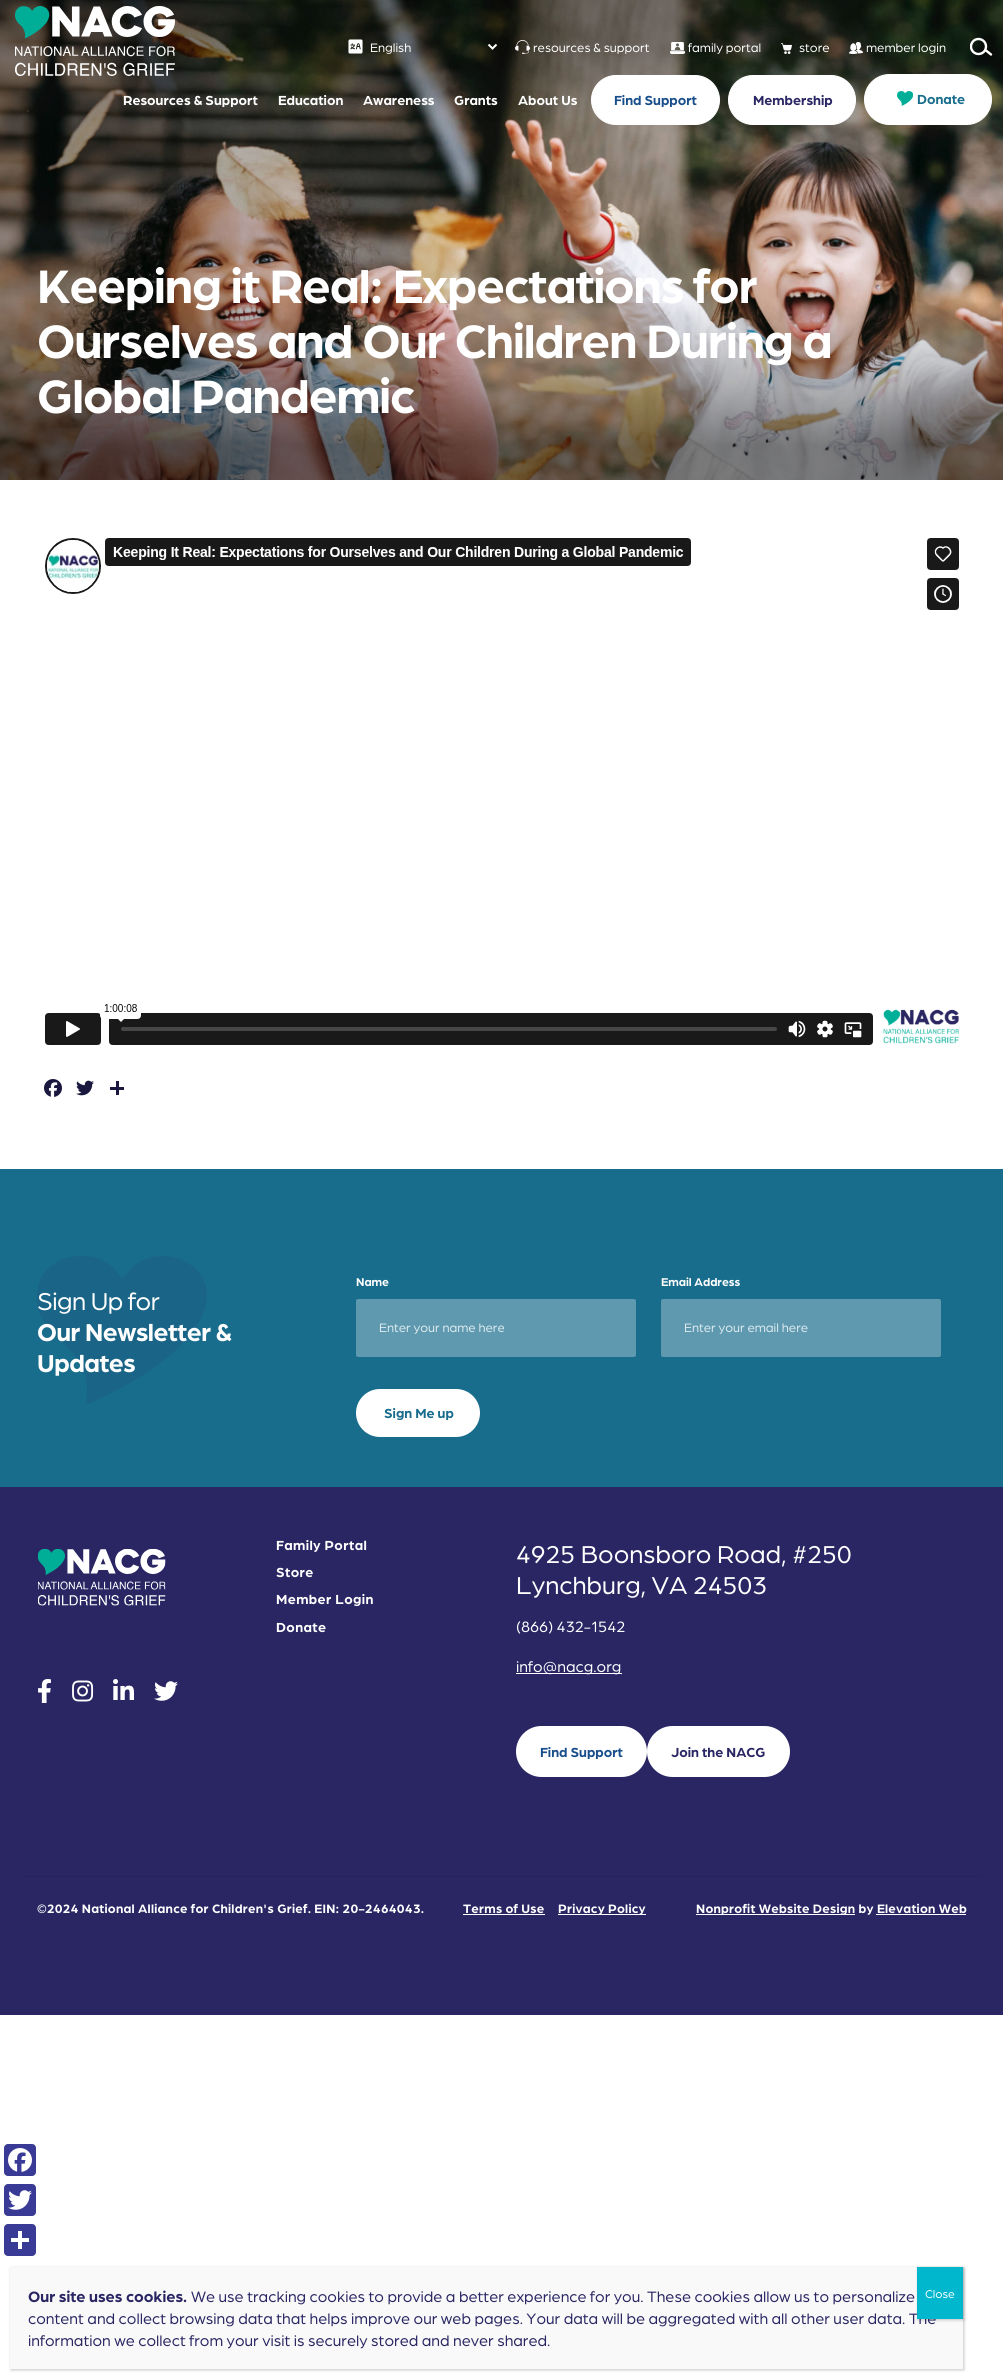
#include <cairo.h>
#include <math.h>
#include <stddef.h>


static void set_color(cairo_t *cr, unsigned color) {
    cairo_set_source_rgb(cr, (color >> 16) / 255.0, (color >> 8 & 255) / 255.0, (color & 255) / 255.0);
}

static void draw_text(cairo_t *cr, double x, double y, const char *s, const char *family, double size, int italic, int bold, unsigned color) {
    cairo_select_font_face(cr, family, italic ? CAIRO_FONT_SLANT_ITALIC : CAIRO_FONT_SLANT_NORMAL,
        bold ? CAIRO_FONT_WEIGHT_BOLD : CAIRO_FONT_WEIGHT_NORMAL);
    cairo_set_font_size(cr, size);
    set_color(cr, color);
    cairo_move_to(cr, x, y);
    cairo_show_text(cr, s);
}

static void draw_spaced(cairo_t *cr, double x, double y, const char *s, double letter, double word) {
    cairo_move_to(cr, x, y);
    while (*s) {
        char ch[5] = {0};
        int n = 0;
        do ch[n++] = *s++; while ((*s & 0xC0) == 0x80);
        cairo_show_text(cr, ch);
        cairo_rel_move_to(cr, letter + word * (*ch == ' '), 0);
    }
}

static void fill_rect(cairo_t *cr, double x, double y, double w, double h, unsigned color) {
    set_color(cr, color);
    cairo_rectangle(cr, x, y, w, h);
    cairo_fill(cr);
}

static void rounded_rect(cairo_t *cr, double x, double y, double w, double h, double r) {
    cairo_new_sub_path(cr);
    cairo_arc(cr, x + w - r, y + h - r, r, 0, M_PI / 2);
    cairo_arc(cr, x + r, y + h - r, r, M_PI / 2, M_PI);
    cairo_arc(cr, x + r, y + r, r, M_PI, 1.5 * M_PI);
    cairo_arc(cr, x + w - r, y + r, r, 1.5 * M_PI, 2 * M_PI);
    cairo_close_path(cr);
}

static void draw_shadow(cairo_t *cr, double x, double y, double w, double h, double r, double blur, double alpha) {
    cairo_push_group_with_content(cr, CAIRO_CONTENT_ALPHA);
    cairo_set_operator(cr, CAIRO_OPERATOR_SOURCE);
    for (int i = 15; i >= -15 && fmin(w, h) + blur * i / 3 > 0; i -= 2) {
        double e = blur * i / 6;
        cairo_set_source_rgba(cr, 0, 0, 0, alpha * erfc((i - 1) / 8.5) / 2);
        rounded_rect(cr, x - e, y - e, w + 2 * e, h + 2 * e, fmax(0, fmin(r + e + blur * .6, fmin(w, h) / 2 + e)));
        cairo_fill(cr);
    }
    cairo_pattern_t *soft = cairo_pop_group(cr);
    cairo_mask(cr, soft);
    cairo_pattern_destroy(soft);
}

static void draw_image(cairo_t *cr, const char *path, double x, double y, double w, double h) {
    cairo_surface_t *image = cairo_image_surface_create_from_png(path);
    cairo_save(cr);
    cairo_set_source_surface(cr, image, x, y);
    cairo_rectangle(cr, x, y, w, h);
    cairo_fill(cr);
    cairo_restore(cr);
    cairo_surface_destroy(image);
}

int main(void) {
    cairo_surface_t *surface = cairo_image_surface_create(CAIRO_FORMAT_RGB24, 1003, 2379);
    cairo_t *cr = cairo_create(surface);
    cairo_font_options_t *options = cairo_font_options_create();
    cairo_font_options_set_hint_metrics(options, CAIRO_HINT_METRICS_OFF);
    cairo_font_options_set_hint_style(options, CAIRO_HINT_STYLE_NONE);
    cairo_set_font_options(cr, options);
    cairo_set_miter_limit(cr, 4);
    set_color(cr, 0xFFFFFF);
    cairo_paint(cr);
    draw_image(cr, "assets/img8.png", 0, 0, 1003, 480);
    draw_image(cr, "assets/img9.png", 0, 0, 1003, 480);
    draw_image(cr, "assets/img1.png", 15, 6, 160, 70);
    draw_image(cr, "assets/img2.png", 348, 39, 15, 15);
    cairo_new_path(cr);
    cairo_move_to(cr, 488.5, 44.5);
    cairo_line_to(cr, 492.5, 48.5);
    cairo_line_to(cr, 496.5, 44.5);
    set_color(cr, 0xFFFFFF);
    cairo_stroke(cr);
    draw_text(cr, 370, 52, "English", "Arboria", 13, 0, 0, 0xFFFFFF);
    draw_image(cr, "assets/img3.png", 515, 40, 15, 14);
    draw_text(cr, 533, 52, "resources & support", "Arboria", 13, 0, 0, 0xFFFFFF);
    draw_image(cr, "assets/img4.png", 670, 42, 15, 12);
    draw_text(cr, 688, 52, "family portal", "Arboria", 13, 0, 0, 0xFFFFFF);
    draw_image(cr, "assets/img5.png", 781, 43, 11, 11);
    draw_text(cr, 799, 52, "store", "Arboria", 13, 0, 0, 0xFFFFFF);
    draw_image(cr, "assets/img6.png", 849, 42, 14, 12);
    draw_text(cr, 866, 52, "member login", "Arboria", 13, 0, 0, 0xFFFFFF);
    cairo_save(cr);
    cairo_rectangle(cr, 970, 36, 22, 22);
    cairo_clip(cr);
    cairo_arc(cr, 978.5, 46.5, 7.5, 0, 2 * M_PI);
    cairo_set_line_width(cr, 2.4);
    cairo_stroke(cr);
    cairo_restore(cr);
    cairo_new_path(cr);
    cairo_move_to(cr, 991, 54.5);
    cairo_line_to(cr, 986, 50.5);
    cairo_set_line_width(cr, 2.4);
    cairo_set_line_cap(cr, CAIRO_LINE_CAP_ROUND);
    cairo_set_line_join(cr, CAIRO_LINE_JOIN_ROUND);
    cairo_stroke(cr);
    draw_text(cr, 123, 105, "Resources & Support", "Arboria", 14, 0, 1, 0xFFFFFF);
    draw_text(cr, 278, 105, "Education", "Arboria", 14, 0, 1, 0xFFFFFF);
    draw_text(cr, 363, 105, "Awareness", "Arboria", 14, 0, 1, 0xFFFFFF);
    draw_text(cr, 454, 105, "Grants", "Arboria", 14, 0, 1, 0xFFFFFF);
    draw_text(cr, 518, 105, "About Us", "Arboria", 14, 0, 1, 0xFFFFFF);
    rounded_rect(cr, 591.5, 75.5, 128, 49, 24.5);
    cairo_fill_preserve(cr);
    cairo_set_line_width(cr, 1);
    cairo_set_line_cap(cr, CAIRO_LINE_CAP_BUTT);
    cairo_set_line_join(cr, CAIRO_LINE_JOIN_MITER);
    cairo_stroke(cr);
    draw_text(cr, 614, 105, "Find Support", "Arboria", 14, 0, 1, 0x194E8C);
    set_color(cr, 0xFFFFFF);
    rounded_rect(cr, 728.5, 75.5, 127, 49, 24.5);
    cairo_fill_preserve(cr);
    cairo_stroke(cr);
    draw_text(cr, 753, 105, "Membership", "Arboria", 14, 0, 1, 0x292663);
    set_color(cr, 0xFFFFFF);
    rounded_rect(cr, 864.5, 74.5, 127, 50, 25);
    cairo_fill_preserve(cr);
    cairo_stroke(cr);
    draw_image(cr, "assets/img7.png", 897, 91, 16, 15);
    draw_text(cr, 917, 104, "Donate", "Arboria", 14, 0, 1, 0x196D8C);
    cairo_set_font_size(cr, 50);
    set_color(cr, 0xFFFFFF);
    draw_spaced(cr, 37, 303, "Keeping it Real: Expectations for", -1, 0);
    draw_spaced(cr, 37, 358, "Ourselves and Our Children During a", -1, 0);
    draw_spaced(cr, 37, 413, "Global Pandemic", -1, 0);
    draw_image(cr, "assets/img10.png", 45, 538, 914, 507);
    draw_image(cr, "assets/img11.png", 44, 1079, 18, 18);
    draw_image(cr, "assets/img12.png", 76, 1080, 18, 16);
    fill_rect(cr, 116, 1081, 3, 14, 0x1A183E);
    fill_rect(cr, 110, 1087, 14, 3, 0x1A183E);
    fill_rect(cr, 0, 1169, 1003, 318, 0x196D8C);
    cairo_set_source_rgba(cr, 0.161, 0.149, 0.388, 0.11);
    cairo_new_path(cr);
    cairo_move_to(cr, 86, 1405);
    cairo_curve_to(cr, 87, 1399, 87, 1393, 87, 1388);
    cairo_curve_to(cr, 87, 1377, 83, 1367, 77, 1358);
    cairo_curve_to(cr, 72, 1352, 67, 1347, 62, 1342);
    cairo_curve_to(cr, 48, 1329, 35, 1315, 37, 1294);
    cairo_curve_to(cr, 39, 1269, 57, 1257, 80, 1256);
    cairo_curve_to(cr, 89, 1256, 98, 1257, 105, 1262);
    cairo_curve_to(cr, 113, 1266, 118, 1272, 122, 1279);
    cairo_curve_to(cr, 128, 1272, 133, 1265, 141, 1261);
    cairo_curve_to(cr, 164, 1249, 198, 1259, 206, 1286);
    cairo_curve_to(cr, 210, 1301, 203, 1318, 194, 1330);
    cairo_curve_to(cr, 189, 1338, 181, 1345, 174, 1352);
    cairo_curve_to(cr, 148, 1375, 117, 1391, 86, 1405);
    cairo_close_path(cr);
    cairo_fill(cr);
    cairo_select_font_face(cr, "Arboria", CAIRO_FONT_SLANT_NORMAL, CAIRO_FONT_WEIGHT_NORMAL);
    cairo_set_font_size(cr, 26);
    set_color(cr, 0xFFFFFF);
    draw_spaced(cr, 37, 1310, "Sign Up for", -0.5, 0);
    cairo_select_font_face(cr, "Arboria", CAIRO_FONT_SLANT_NORMAL, CAIRO_FONT_WEIGHT_BOLD);
    draw_spaced(cr, 37, 1341, "Our Newsletter &", -0.5, 0);
    draw_spaced(cr, 37, 1372, "Updates", -0.5, 0);
    draw_text(cr, 356, 1286, "Name", "Arboria", 12, 0, 1, 0xFFFFFF);
    set_color(cr, 0x5E99AF);
    rounded_rect(cr, 356, 1299, 280, 58, 2);
    cairo_fill(cr);
    draw_text(cr, 379, 1332, "Enter your name here", "Arboria", 13, 0, 0, 0xDFEBEF);
    draw_text(cr, 661, 1286, "Email Address", "Arboria", 12, 0, 1, 0xFFFFFF);
    set_color(cr, 0x5E99AF);
    rounded_rect(cr, 661, 1299, 280, 58, 2);
    cairo_fill(cr);
    draw_text(cr, 684, 1332, "Enter your email here", "Arboria", 13, 0, 0, 0xDFEBEF);
    set_color(cr, 0xFFFFFF);
    rounded_rect(cr, 356, 1389, 124, 48, 24);
    cairo_fill(cr);
    draw_text(cr, 384, 1418, "Sign Me up", "Arboria", 14, 0, 1, 0x196D8C);
    fill_rect(cr, 0, 1487, 1003, 528, 0x292663);
    draw_image(cr, "assets/img13.png", 38, 1549, 128, 57);
    draw_image(cr, "assets/img14.png", 38, 1679, 13, 24);
    draw_image(cr, "assets/img15.png", 72, 1680, 22, 22);
    draw_image(cr, "assets/img16.png", 113, 1679, 21, 21);
    draw_image(cr, "assets/img17.png", 154, 1681, 24, 20);
    set_color(cr, 0xFFFFFF);
    draw_spaced(cr, 276, 1550, "Family Portal", 0.4, 0);
    draw_spaced(cr, 276, 1577, "Store", 0.4, 0);
    draw_spaced(cr, 276, 1604, "Member Login", 0.4, 0);
    draw_spaced(cr, 276, 1632, "Donate", 0.4, 0);
    draw_text(cr, 516, 1563, "4925 Boonsboro Road, #250", "Arboria", 26, 0, 0, 0xFFFFFF);
    draw_text(cr, 516, 1594, "Lynchburg, VA 24503", "Arboria", 26, 0, 0, 0xFFFFFF);
    draw_text(cr, 516, 1632, "(866) 432-1542", "Arboria", 16, 0, 0, 0xFFFFFF);
    fill_rect(cr, 516, 1673, 106, 1, 0xFFFFFF);
    draw_text(cr, 516, 1672, "info@nacg.org", "Arboria", 16, 0, 0, 0xFFFFFF);
    rounded_rect(cr, 517, 1727, 129, 49, 24.5);
    cairo_fill_preserve(cr);
    cairo_set_line_width(cr, 2);
    cairo_stroke(cr);
    draw_text(cr, 540, 1757, "Find Support", "Arboria", 14, 0, 1, 0x194E8C);
    set_color(cr, 0xFFFFFF);
    rounded_rect(cr, 648, 1727, 141, 49, 24.5);
    cairo_fill_preserve(cr);
    cairo_stroke(cr);
    draw_text(cr, 671, 1757, "Join the NACG", "Arboria", 14, 0, 1, 0x292663);
    fill_rect(cr, 22, 1876, 960, 1, 0x26235C);
    cairo_set_font_size(cr, 13);
    set_color(cr, 0xFFFFFF);
    draw_spaced(cr, 37, 1913, "©2024 National Alliance for Children's Grief. EIN: 20-2464043.", 0.25, 0);
    draw_spaced(cr, 463, 1913, "Terms of Use", 0.25, 0);
    fill_rect(cr, 463, 1914, 82, 1, 0xFFFFFF);
    fill_rect(cr, 558, 1914, 88, 1, 0xFFFFFF);
    draw_spaced(cr, 558, 1913, "Privacy Policy", 0.25, 0);
    fill_rect(cr, 696, 1914, 159, 1, 0xFFFFFF);
    draw_spaced(cr, 696, 1913, "Nonprofit Website Design by Elevation Web", 0.25, 0);
    fill_rect(cr, 876, 1914, 90, 1, 0xFFFFFF);
    set_color(cr, 0x393A96);
    rounded_rect(cr, 4, 2144, 32, 32, 4);
    cairo_fill(cr);
    draw_image(cr, "assets/img18.png", 8, 2148, 24, 24);
    rounded_rect(cr, 4, 2184, 32, 32, 4);
    cairo_fill(cr);
    draw_image(cr, "assets/img19.png", 8, 2190, 24, 20);
    rounded_rect(cr, 4, 2224, 32, 32, 4);
    cairo_fill(cr);
    fill_rect(cr, 18, 2231, 4, 18, 0xFFFFFF);
    fill_rect(cr, 11, 2238, 18, 4, 0xFFFFFF);
    set_color(cr, 0x020202);
    draw_shadow(cr, 11, 2268, 953, 102, 0, 1.5, 0.23);
    fill_rect(cr, 10, 2267, 953, 102, 0xF9F9F9);
    draw_text(cr, 28, 2302, "Our site uses cookies.", "Arboria", 16, 0, 1, 0x292663);
    draw_text(cr, 191, 2302, "We use tracking cookies to provide a better experience for you. These cookies allow us to personalize", "Arboria", 16, 0, 0, 0x292663);
    draw_text(cr, 28, 2324, "content and collect browsing data that helps improve our web pages. Your data will be aggregated with all other user data. The", "Arboria", 16, 0, 0, 0x292663);
    draw_text(cr, 28, 2346, "information we collect from your visit is securely stored and never shared.", "Arboria", 16, 0, 0, 0x292663);
    set_color(cr, 0x020202);
    draw_shadow(cr, 918, 2268, 46, 52, 0, 1.5, 0.23);
    fill_rect(cr, 917, 2267, 46, 52, 0x00B7CD);
    draw_text(cr, 925, 2298, "Close", "Arboria", 12, 0, 0, 0xFFFFFF);
    cairo_surface_write_to_png(surface, "output.png");
    cairo_font_options_destroy(options);
    cairo_destroy(cr);
    cairo_surface_destroy(surface);
    return 0;
}
